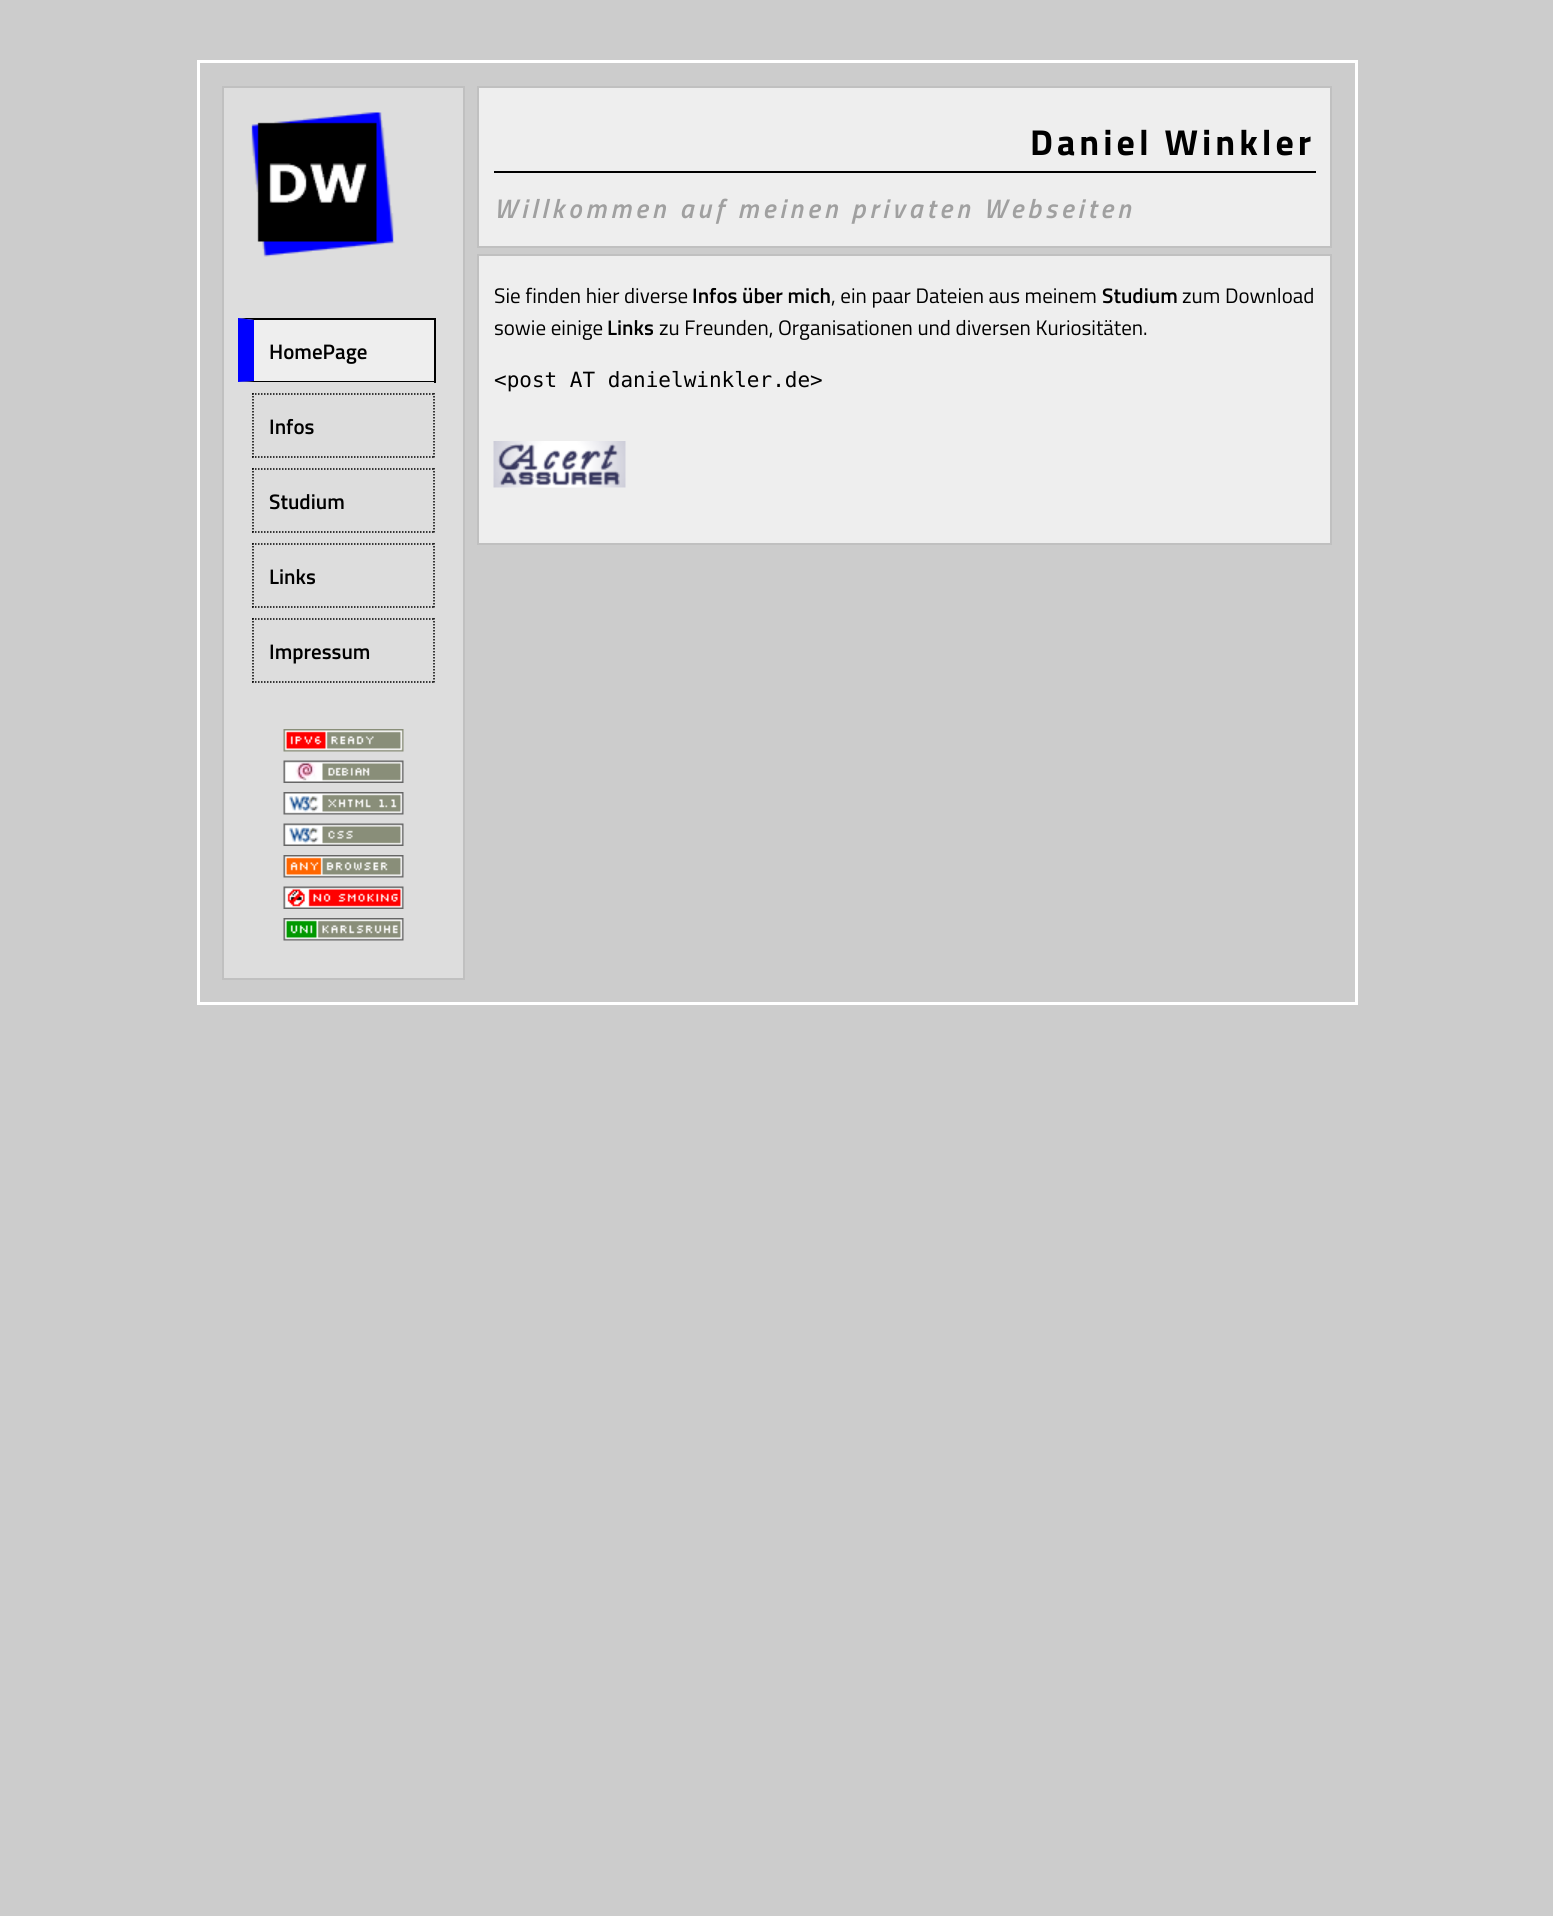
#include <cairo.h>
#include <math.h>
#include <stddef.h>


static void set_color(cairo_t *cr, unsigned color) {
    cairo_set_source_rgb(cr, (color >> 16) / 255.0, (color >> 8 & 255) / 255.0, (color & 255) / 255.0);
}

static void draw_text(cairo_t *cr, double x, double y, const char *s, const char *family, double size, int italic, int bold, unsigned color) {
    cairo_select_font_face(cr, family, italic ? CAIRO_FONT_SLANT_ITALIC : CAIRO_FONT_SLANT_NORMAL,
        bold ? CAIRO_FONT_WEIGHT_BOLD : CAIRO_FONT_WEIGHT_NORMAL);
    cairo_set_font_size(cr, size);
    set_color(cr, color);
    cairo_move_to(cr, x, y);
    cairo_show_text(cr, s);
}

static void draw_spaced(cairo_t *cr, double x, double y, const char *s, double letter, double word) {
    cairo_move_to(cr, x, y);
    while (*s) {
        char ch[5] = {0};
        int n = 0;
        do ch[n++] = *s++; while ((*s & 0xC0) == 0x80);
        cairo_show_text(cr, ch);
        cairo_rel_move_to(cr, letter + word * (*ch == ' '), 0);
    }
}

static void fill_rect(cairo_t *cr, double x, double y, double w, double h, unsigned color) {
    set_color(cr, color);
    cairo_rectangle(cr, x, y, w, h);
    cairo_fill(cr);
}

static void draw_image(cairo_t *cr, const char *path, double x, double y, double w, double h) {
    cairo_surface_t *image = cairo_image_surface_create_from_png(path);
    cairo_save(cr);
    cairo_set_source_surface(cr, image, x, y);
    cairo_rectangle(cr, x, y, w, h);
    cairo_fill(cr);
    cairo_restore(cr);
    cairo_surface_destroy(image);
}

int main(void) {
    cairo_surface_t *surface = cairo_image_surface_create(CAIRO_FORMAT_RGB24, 1553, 1916);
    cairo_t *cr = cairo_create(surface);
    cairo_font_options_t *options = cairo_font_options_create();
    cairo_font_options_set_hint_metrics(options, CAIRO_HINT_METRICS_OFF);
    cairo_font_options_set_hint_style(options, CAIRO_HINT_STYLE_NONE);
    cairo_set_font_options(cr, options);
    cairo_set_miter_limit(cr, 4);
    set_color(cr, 0xCCCCCC);
    cairo_paint(cr);
    cairo_rectangle(cr, 198.5, 61.5, 1158, 942);
    set_color(cr, 0xFFFFFF);
    cairo_set_line_width(cr, 3);
    cairo_stroke(cr);
    set_color(cr, 0xEEEEEE);
    cairo_rectangle(cr, 478, 87, 853, 160);
    cairo_fill_preserve(cr);
    set_color(cr, 0xC0C0C0);
    cairo_set_line_width(cr, 2);
    cairo_stroke(cr);
    fill_rect(cr, 494, 171, 822, 2, 0x000000);
    cairo_select_font_face(cr, "Titillium Web", CAIRO_FONT_SLANT_NORMAL, CAIRO_FONT_WEIGHT_BOLD);
    cairo_set_font_size(cr, 36);
    draw_spaced(cr, 1030, 155, "Daniel Winkler", 4, 0);
    cairo_select_font_face(cr, "Titillium Web SemiBold", CAIRO_FONT_SLANT_ITALIC, CAIRO_FONT_WEIGHT_NORMAL);
    cairo_set_font_size(cr, 27);
    set_color(cr, 0xA0A0A0);
    draw_spaced(cr, 494, 218, "Willkommen auf meinen privaten Webseiten", 4, 0);
    set_color(cr, 0xEEEEEE);
    cairo_rectangle(cr, 478, 255, 853, 289);
    cairo_fill_preserve(cr);
    set_color(cr, 0xC0C0C0);
    cairo_stroke(cr);
    draw_text(cr, 494, 303, "Sie finden hier diverse", "Titillium Web", 21, 0, 0, 0x000000);
    draw_text(cr, 692, 303, "Infos über mich", "Titillium Web SemiBold", 21, 0, 0, 0x000000);
    draw_text(cr, 831, 303, ", ein paar Dateien aus meinem", "Titillium Web", 21, 0, 0, 0x000000);
    draw_text(cr, 1102, 303, "Studium", "Titillium Web SemiBold", 21, 0, 0, 0x000000);
    draw_text(cr, 1182, 303, "zum Download", "Titillium Web", 21, 0, 0, 0x000000);
    draw_text(cr, 494, 335, "sowie einige", "Titillium Web", 21, 0, 0, 0x000000);
    draw_text(cr, 607, 335, "Links", "Titillium Web SemiBold", 21, 0, 0, 0x000000);
    draw_text(cr, 659, 335, "zu Freunden, Organisationen und diversen Kuriositäten.", "Titillium Web", 21, 0, 0, 0x000000);
    draw_text(cr, 494, 387, "<post AT danielwinkler.de>", "DejaVu Sans Mono", 21, 0, 0, 0x000000);
    draw_image(cr, "assets/img1.png", 493, 441, 133, 47);
    set_color(cr, 0xDDDDDD);
    cairo_rectangle(cr, 223, 87, 241, 892);
    cairo_fill_preserve(cr);
    set_color(cr, 0xC0C0C0);
    cairo_stroke(cr);
    draw_image(cr, "assets/img2.png", 251, 112, 144, 145);
    fill_rect(cr, 254, 320, 180, 61, 0xEEEEEE);
    set_color(cr, 0x000000);
    cairo_new_path(cr);
    cairo_move_to(cr, 238, 318);
    cairo_line_to(cr, 435, 318);
    cairo_line_to(cr, 434, 320);
    cairo_line_to(cr, 254, 320);
    cairo_close_path(cr);
    cairo_fill(cr);
    fill_rect(cr, 434, 318, 2, 65, 0x000000);
    cairo_new_path(cr);
    cairo_move_to(cr, 435, 382);
    cairo_line_to(cr, 238, 382);
    cairo_line_to(cr, 254, 381);
    cairo_line_to(cr, 434, 381);
    cairo_close_path(cr);
    cairo_fill(cr);
    set_color(cr, 0x0000FF);
    cairo_new_path(cr);
    cairo_move_to(cr, 238, 382);
    cairo_line_to(cr, 238, 318);
    cairo_line_to(cr, 254, 320);
    cairo_line_to(cr, 254, 381);
    cairo_close_path(cr);
    cairo_fill(cr);
    draw_text(cr, 269, 359, "HomePage", "Titillium Web SemiBold", 21, 0, 0, 0x000000);
    cairo_new_path(cr);
    cairo_move_to(cr, 252, 394);
    cairo_line_to(cr, 435, 394);
    cairo_set_line_width(cr, 1.5);
    cairo_set_dash(cr, (double[]){1.5, 1.5}, 2, 0);
    cairo_stroke(cr);
    cairo_new_path(cr);
    cairo_move_to(cr, 434, 393);
    cairo_line_to(cr, 434, 457.5);
    cairo_stroke(cr);
    cairo_new_path(cr);
    cairo_move_to(cr, 252, 457);
    cairo_line_to(cr, 435, 457);
    cairo_stroke(cr);
    cairo_new_path(cr);
    cairo_move_to(cr, 253, 393);
    cairo_line_to(cr, 253, 457.5);
    cairo_stroke(cr);
    draw_text(cr, 269, 434, "Infos", "Titillium Web SemiBold", 21, 0, 0, 0x000000);
    cairo_new_path(cr);
    cairo_move_to(cr, 252, 469);
    cairo_line_to(cr, 435, 469);
    cairo_stroke(cr);
    cairo_new_path(cr);
    cairo_move_to(cr, 434, 468);
    cairo_line_to(cr, 434, 532.5);
    cairo_stroke(cr);
    cairo_new_path(cr);
    cairo_move_to(cr, 252, 532);
    cairo_line_to(cr, 435, 532);
    cairo_stroke(cr);
    cairo_new_path(cr);
    cairo_move_to(cr, 253, 468);
    cairo_line_to(cr, 253, 532.5);
    cairo_stroke(cr);
    draw_text(cr, 269, 509, "Studium", "Titillium Web SemiBold", 21, 0, 0, 0x000000);
    cairo_new_path(cr);
    cairo_move_to(cr, 252, 544);
    cairo_line_to(cr, 435, 544);
    cairo_stroke(cr);
    cairo_new_path(cr);
    cairo_move_to(cr, 434, 543);
    cairo_line_to(cr, 434, 607.5);
    cairo_stroke(cr);
    cairo_new_path(cr);
    cairo_move_to(cr, 252, 607);
    cairo_line_to(cr, 435, 607);
    cairo_stroke(cr);
    cairo_new_path(cr);
    cairo_move_to(cr, 253, 543);
    cairo_line_to(cr, 253, 607.5);
    cairo_stroke(cr);
    draw_text(cr, 269, 584, "Links", "Titillium Web SemiBold", 21, 0, 0, 0x000000);
    cairo_new_path(cr);
    cairo_move_to(cr, 252, 619);
    cairo_line_to(cr, 435, 619);
    cairo_stroke(cr);
    cairo_new_path(cr);
    cairo_move_to(cr, 434, 618);
    cairo_line_to(cr, 434, 682.5);
    cairo_stroke(cr);
    cairo_new_path(cr);
    cairo_move_to(cr, 252, 682);
    cairo_line_to(cr, 435, 682);
    cairo_stroke(cr);
    cairo_new_path(cr);
    cairo_move_to(cr, 253, 618);
    cairo_line_to(cr, 253, 682.5);
    cairo_stroke(cr);
    draw_text(cr, 269, 659, "Impressum", "Titillium Web SemiBold", 21, 0, 0, 0x000000);
    draw_image(cr, "assets/img3.png", 283, 729, 121, 23);
    draw_image(cr, "assets/img4.png", 283, 760, 121, 23);
    draw_image(cr, "assets/img5.png", 283, 792, 121, 23);
    draw_image(cr, "assets/img6.png", 283, 823, 121, 23);
    draw_image(cr, "assets/img7.png", 283, 855, 121, 23);
    draw_image(cr, "assets/img8.png", 283, 886, 121, 23);
    draw_image(cr, "assets/img9.png", 283, 918, 121, 23);
    cairo_surface_write_to_png(surface, "output.png");
    cairo_font_options_destroy(options);
    cairo_destroy(cr);
    cairo_surface_destroy(surface);
    return 0;
}
